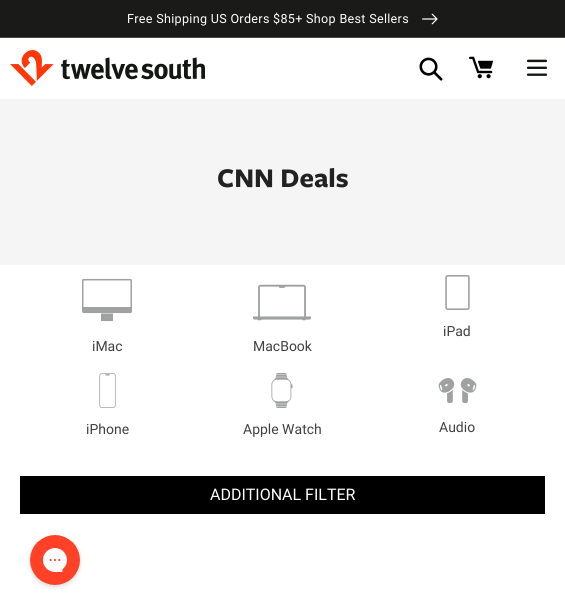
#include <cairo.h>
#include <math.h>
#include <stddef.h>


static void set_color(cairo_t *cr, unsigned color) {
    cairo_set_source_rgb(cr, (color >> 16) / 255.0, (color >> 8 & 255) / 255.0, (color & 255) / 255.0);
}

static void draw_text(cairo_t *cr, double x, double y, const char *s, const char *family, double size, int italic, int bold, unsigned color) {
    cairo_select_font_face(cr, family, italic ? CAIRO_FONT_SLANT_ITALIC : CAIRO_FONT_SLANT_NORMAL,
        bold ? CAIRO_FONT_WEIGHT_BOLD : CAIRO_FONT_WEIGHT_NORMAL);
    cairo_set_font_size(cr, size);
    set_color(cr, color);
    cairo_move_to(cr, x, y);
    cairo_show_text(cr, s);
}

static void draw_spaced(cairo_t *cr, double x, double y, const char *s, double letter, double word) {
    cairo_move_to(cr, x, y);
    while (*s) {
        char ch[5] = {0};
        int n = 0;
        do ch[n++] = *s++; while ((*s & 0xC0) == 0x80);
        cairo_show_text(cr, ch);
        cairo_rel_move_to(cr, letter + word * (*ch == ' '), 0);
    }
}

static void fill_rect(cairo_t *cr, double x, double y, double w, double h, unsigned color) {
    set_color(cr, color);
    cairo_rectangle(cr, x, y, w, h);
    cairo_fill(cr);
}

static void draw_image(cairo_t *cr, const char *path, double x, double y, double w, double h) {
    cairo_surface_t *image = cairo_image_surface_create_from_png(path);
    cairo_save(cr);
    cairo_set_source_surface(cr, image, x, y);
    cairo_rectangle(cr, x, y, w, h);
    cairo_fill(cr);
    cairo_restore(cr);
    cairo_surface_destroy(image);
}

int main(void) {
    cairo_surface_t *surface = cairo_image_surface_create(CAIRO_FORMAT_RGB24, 565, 612);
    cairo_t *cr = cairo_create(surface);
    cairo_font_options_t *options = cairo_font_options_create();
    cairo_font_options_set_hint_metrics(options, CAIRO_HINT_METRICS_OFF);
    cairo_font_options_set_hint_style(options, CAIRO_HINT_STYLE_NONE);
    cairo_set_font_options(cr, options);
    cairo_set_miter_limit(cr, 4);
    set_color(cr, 0xFFFFFF);
    cairo_paint(cr);
    fill_rect(cr, 0, 0, 565, 37, 0x1A1B18);
    fill_rect(cr, 0, 37, 565, 1, 0x484946);
    cairo_select_font_face(cr, "Roboto", CAIRO_FONT_SLANT_NORMAL, CAIRO_FONT_WEIGHT_NORMAL);
    cairo_set_font_size(cr, 12.6);
    set_color(cr, 0xFFFFFF);
    draw_spaced(cr, 127, 23, "Free Shipping US Orders $85+ Shop Best Sellers", 0.3, 0);
    draw_image(cr, "assets/img1.png", 422, 13, 16, 12);
    draw_image(cr, "assets/img2.png", 10, 50, 195, 36);
    draw_image(cr, "assets/img3.png", 419, 57, 24, 24);
    draw_image(cr, "assets/img4.png", 469, 56, 24, 23);
    draw_image(cr, "assets/img5.png", 526, 59, 22, 17);
    fill_rect(cr, 0, 99, 565, 166, 0xF5F5F5);
    draw_text(cr, 217, 187, "CNN Deals", "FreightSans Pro", 28, 0, 1, 0x222222);
    draw_image(cr, "assets/img6.png", 445, 275, 25, 35);
    draw_text(cr, 443, 336, "iPad", "Roboto", 14, 0, 0, 0x404041);
    draw_image(cr, "assets/img7.png", 82, 278, 50, 44);
    draw_text(cr, 92, 351, "iMac", "Roboto", 14, 0, 0, 0x404041);
    draw_image(cr, "assets/img8.png", 253, 284, 58, 37);
    draw_text(cr, 253, 351, "MacBook", "Roboto", 14, 0, 0, 0x404041);
    draw_image(cr, "assets/img9.png", 99, 373, 17, 35);
    draw_text(cr, 86, 434, "iPhone", "Roboto", 14, 0, 0, 0x404041);
    draw_image(cr, "assets/img10.png", 271, 373, 22, 35);
    draw_text(cr, 243, 434, "Apple Watch", "Roboto", 14, 0, 0, 0x404041);
    draw_image(cr, "assets/img11.png", 438, 378, 39, 25);
    draw_text(cr, 439, 432, "Audio", "Roboto", 14, 0, 0, 0x404041);
    fill_rect(cr, 20, 476, 525, 38, 0x000000);
    draw_text(cr, 210, 500, "ADDITIONAL FILTER", "Roboto", 16, 0, 0, 0xFFFFFF);
    draw_image(cr, "assets/img12.png", 28, 535, 54, 54);
    cairo_surface_write_to_png(surface, "output.png");
    cairo_font_options_destroy(options);
    cairo_destroy(cr);
    cairo_surface_destroy(surface);
    return 0;
}
